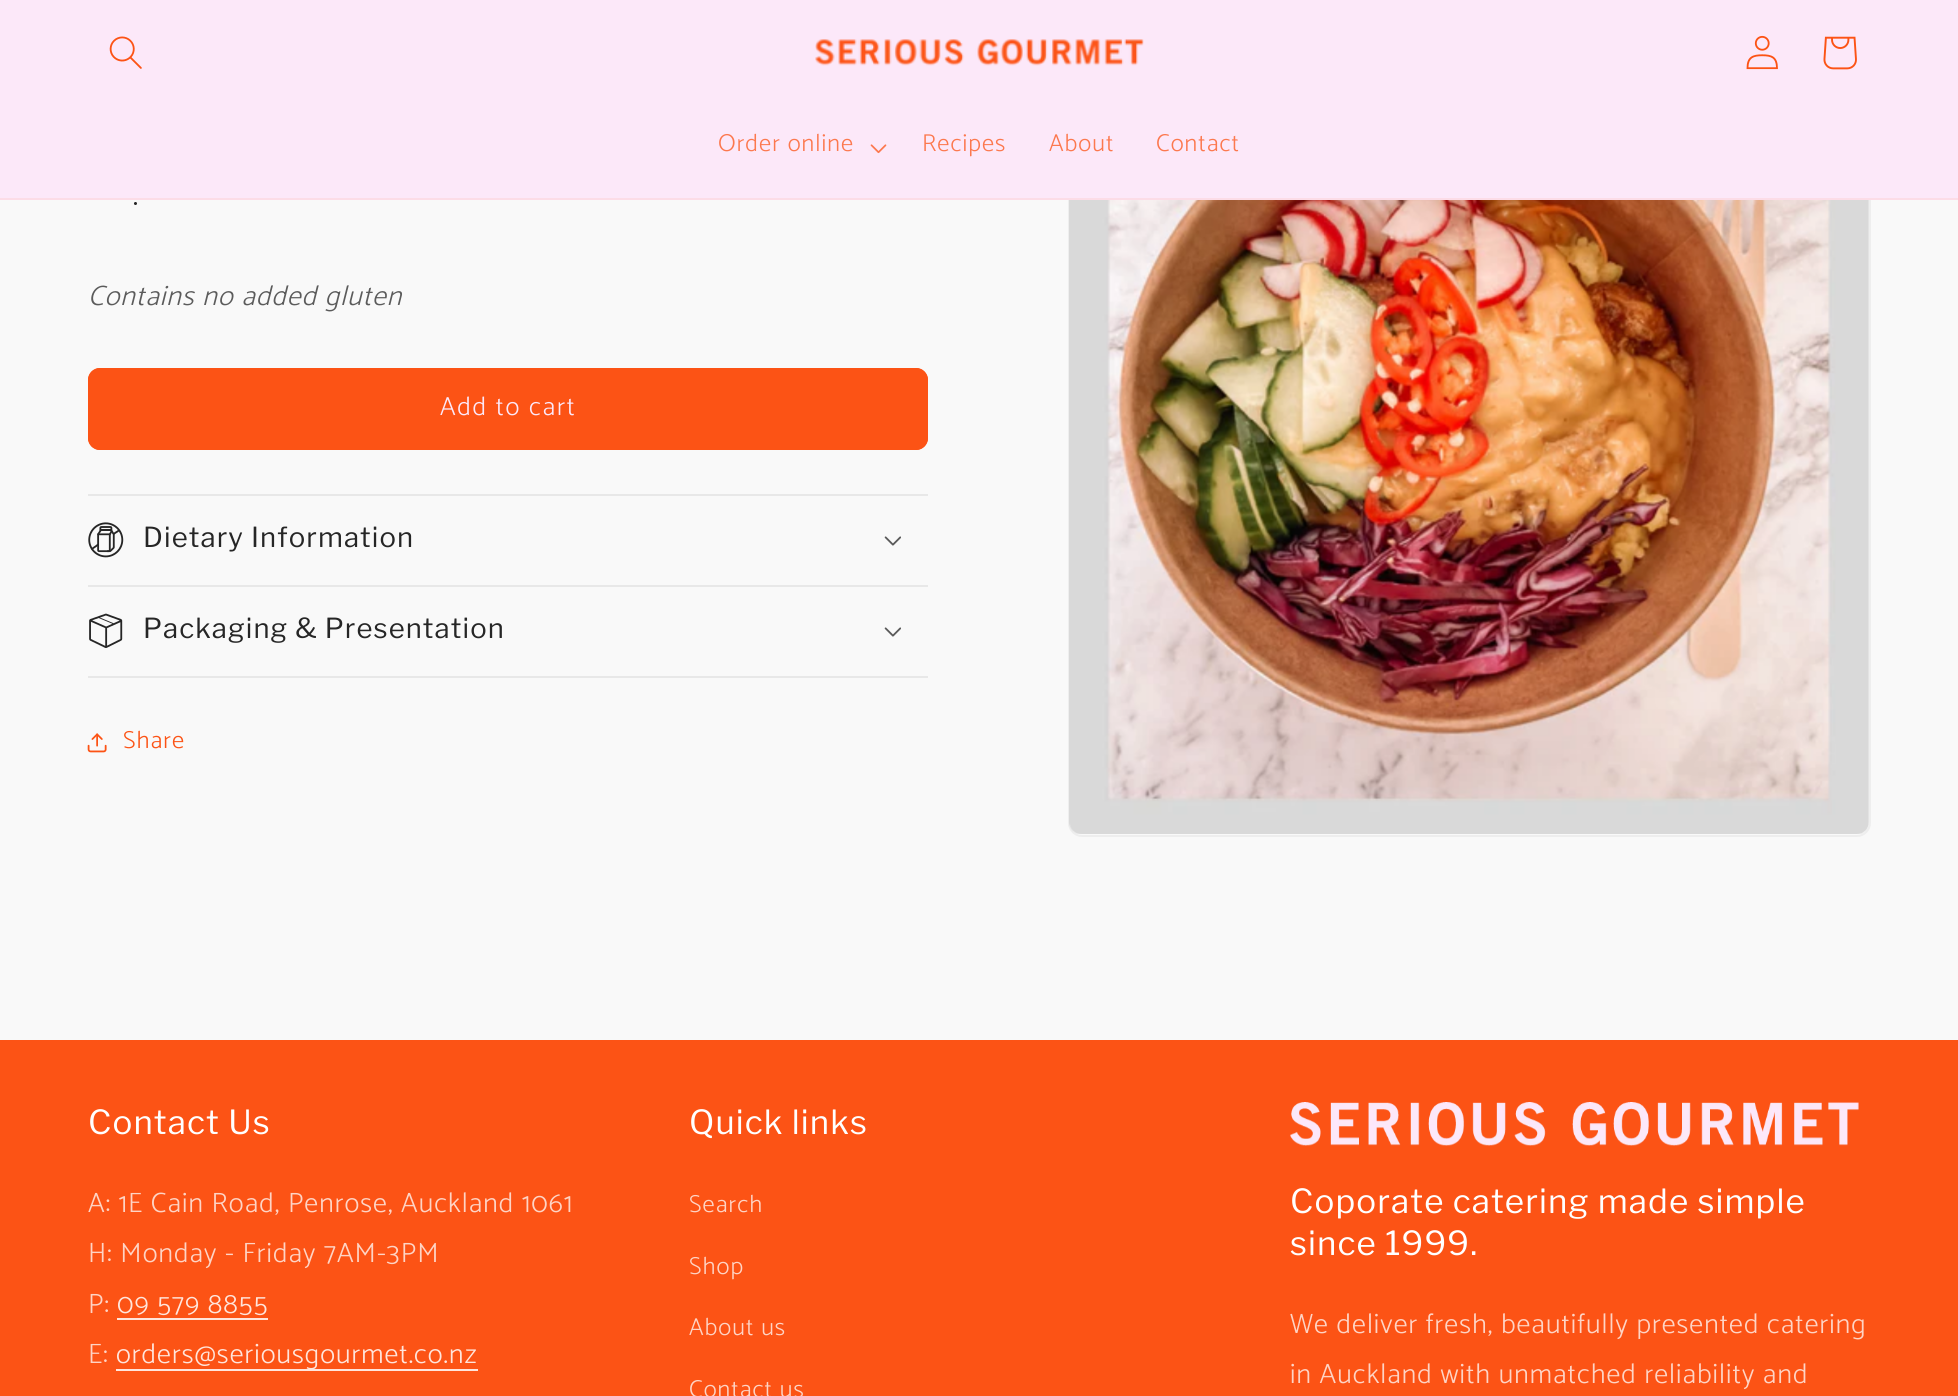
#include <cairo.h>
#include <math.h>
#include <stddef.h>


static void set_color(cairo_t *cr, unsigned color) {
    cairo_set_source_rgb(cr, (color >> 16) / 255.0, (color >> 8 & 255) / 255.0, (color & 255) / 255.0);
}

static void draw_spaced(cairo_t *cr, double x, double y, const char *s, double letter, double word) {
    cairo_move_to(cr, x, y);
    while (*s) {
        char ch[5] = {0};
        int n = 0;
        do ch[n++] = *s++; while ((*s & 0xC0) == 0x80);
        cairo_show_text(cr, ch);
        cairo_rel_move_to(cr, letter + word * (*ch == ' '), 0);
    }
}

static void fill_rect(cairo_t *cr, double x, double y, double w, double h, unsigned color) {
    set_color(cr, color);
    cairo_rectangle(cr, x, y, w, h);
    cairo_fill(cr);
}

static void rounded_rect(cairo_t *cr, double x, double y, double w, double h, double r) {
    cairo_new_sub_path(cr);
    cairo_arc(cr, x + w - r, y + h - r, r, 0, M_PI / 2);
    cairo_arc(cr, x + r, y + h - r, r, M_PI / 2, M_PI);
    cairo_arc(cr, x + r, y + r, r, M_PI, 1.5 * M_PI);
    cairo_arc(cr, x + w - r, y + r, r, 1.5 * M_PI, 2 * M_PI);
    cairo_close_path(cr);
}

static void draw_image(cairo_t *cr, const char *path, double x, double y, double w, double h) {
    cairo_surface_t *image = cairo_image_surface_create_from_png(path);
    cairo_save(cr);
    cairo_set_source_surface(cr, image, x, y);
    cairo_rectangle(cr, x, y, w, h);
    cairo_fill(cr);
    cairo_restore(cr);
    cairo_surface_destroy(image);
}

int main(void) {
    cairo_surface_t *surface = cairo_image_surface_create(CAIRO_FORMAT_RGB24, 1958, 1396);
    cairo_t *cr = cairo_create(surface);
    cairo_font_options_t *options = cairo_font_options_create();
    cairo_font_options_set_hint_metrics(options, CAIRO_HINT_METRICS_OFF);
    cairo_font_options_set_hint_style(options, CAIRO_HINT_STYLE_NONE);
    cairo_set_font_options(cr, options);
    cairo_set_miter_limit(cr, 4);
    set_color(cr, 0xF9F9F9);
    cairo_paint(cr);
    rounded_rect(cr, 1069, 36, 801, 800, 13);
    set_color(cr, 0xEEEEEE);
    cairo_stroke(cr);
    fill_rect(cr, 0, 0, 1958, 198, 0xFCE8F9);
    fill_rect(cr, 0, 198, 1958, 2, 0xFCDCE7);
    draw_image(cr, "assets/img1.png", 109, 36, 33, 33);
    draw_image(cr, "assets/img2.png", 815, 39, 329, 27);
    draw_image(cr, "assets/img3.png", 1746, 35, 32, 35);
    draw_image(cr, "assets/img4.png", 1823, 36, 34, 34);
    cairo_select_font_face(cr, "Catamaran Light", CAIRO_FONT_SLANT_NORMAL, CAIRO_FONT_WEIGHT_NORMAL);
    cairo_set_font_size(cr, 24.5);
    set_color(cr, 0xFC784E);
    draw_spaced(cr, 718, 151, "Order online", 1.05, 0);
    draw_image(cr, "assets/img5.png", 870, 144, 17, 10);
    draw_spaced(cr, 922, 151, "Recipes", 1.05, 0);
    draw_spaced(cr, 1049, 151, "About", 1.05, 0);
    draw_spaced(cr, 1156, 151, "Contact", 1.05, 0);
    cairo_set_font_size(cr, 32);
    set_color(cr, 0x262626);
    draw_spaced(cr, 133, 205, ".", 2, 0);
    cairo_select_font_face(cr, "Catamaran Light", CAIRO_FONT_SLANT_ITALIC, CAIRO_FONT_WEIGHT_NORMAL);
    cairo_set_font_size(cr, 28);
    set_color(cr, 0x5B5B5B);
    draw_spaced(cr, 88, 305, "Contains no added gluten", 1.05, 0);
    set_color(cr, 0xFC5315);
    rounded_rect(cr, 88, 368, 840, 82, 12);
    cairo_fill(cr);
    rounded_rect(cr, 89, 369, 838, 80, 11);
    cairo_stroke(cr);
    cairo_select_font_face(cr, "Catamaran Light", CAIRO_FONT_SLANT_NORMAL, CAIRO_FONT_WEIGHT_NORMAL);
    cairo_set_font_size(cr, 26.25);
    set_color(cr, 0xFCE8F9);
    draw_spaced(cr, 440, 415, "Add to cart", 1.75, 0);
    fill_rect(cr, 88, 494, 840, 2, 0xE8E8E8);
    fill_rect(cr, 88, 585, 840, 2, 0xE8E8E8);
    draw_image(cr, "assets/img6.png", 88, 522, 36, 36);
    cairo_select_font_face(cr, "Libre Franklin", CAIRO_FONT_SLANT_NORMAL, CAIRO_FONT_WEIGHT_NORMAL);
    cairo_set_font_size(cr, 27.5);
    set_color(cr, 0x262626);
    draw_spaced(cr, 143, 547, "Dietary Information", 1.1, 0);
    draw_image(cr, "assets/img7.png", 884, 536, 17, 10);
    fill_rect(cr, 88, 676, 840, 2, 0xE8E8E8);
    draw_image(cr, "assets/img8.png", 89, 613, 34, 35);
    set_color(cr, 0x262626);
    draw_spaced(cr, 143, 638, "Packaging & Presentation", 1.1, 0);
    draw_image(cr, "assets/img7.png", 884, 627, 17, 10);
    draw_image(cr, "assets/img9.png", 87, 733, 20, 20);
    cairo_select_font_face(cr, "Catamaran Light", CAIRO_FONT_SLANT_NORMAL, CAIRO_FONT_WEIGHT_NORMAL);
    cairo_set_font_size(cr, 24.5);
    set_color(cr, 0xFC5315);
    draw_spaced(cr, 123, 748, "Share", 1.05, 0);
    draw_image(cr, "assets/img10.png", 1069, 200, 800, 634);
    fill_rect(cr, 0, 1040, 1958, 356, 0xFC5315);
    cairo_select_font_face(cr, "Libre Franklin", CAIRO_FONT_SLANT_NORMAL, CAIRO_FONT_WEIGHT_NORMAL);
    cairo_set_font_size(cr, 33.1);
    set_color(cr, 0xFFFFFF);
    draw_spaced(cr, 88, 1134, "Contact Us", 1.1, 0);
    cairo_select_font_face(cr, "Catamaran Light", CAIRO_FONT_SLANT_NORMAL, CAIRO_FONT_WEIGHT_NORMAL);
    cairo_set_font_size(cr, 28);
    set_color(cr, 0xFED4C5);
    draw_spaced(cr, 88, 1212, "A: 1E Cain Road, Penrose, Auckland 1061", 1.05, 0);
    draw_spaced(cr, 88, 1262, "H: Monday - Friday 7AM-3PM", 1.05, 0);
    draw_spaced(cr, 88, 1313, "P:", 1.05, 0);
    set_color(cr, 0xFFE5DC);
    draw_spaced(cr, 117, 1313, "09 579 8855", 1.05, 0);
    fill_rect(cr, 117, 1318, 151, 2, 0xFFE5DC);
    set_color(cr, 0xFED4C5);
    draw_spaced(cr, 88, 1363, "E:", 1.05, 0);
    fill_rect(cr, 116, 1369, 362, 2, 0xFFE5DC);
    draw_spaced(cr, 116, 1363, "orders@seriousgourmet.co.nz", 1.05, 0);
    cairo_select_font_face(cr, "Libre Franklin", CAIRO_FONT_SLANT_NORMAL, CAIRO_FONT_WEIGHT_NORMAL);
    cairo_set_font_size(cr, 33.1);
    set_color(cr, 0xFFFFFF);
    draw_spaced(cr, 689, 1134, "Quick links", 1.1, 0);
    cairo_select_font_face(cr, "Catamaran Light", CAIRO_FONT_SLANT_NORMAL, CAIRO_FONT_WEIGHT_NORMAL);
    cairo_set_font_size(cr, 24.5);
    set_color(cr, 0xFED4C5);
    draw_spaced(cr, 689, 1212, "Search", 1.05, 0);
    draw_spaced(cr, 689, 1274, "Shop", 1.05, 0);
    draw_spaced(cr, 689, 1335, "About us", 1.05, 0);
    draw_spaced(cr, 689, 1397, "Contact us", 1.05, 0);
    draw_image(cr, "assets/img11.png", 1290, 1102, 569, 44);
    cairo_select_font_face(cr, "Libre Franklin", CAIRO_FONT_SLANT_NORMAL, CAIRO_FONT_WEIGHT_NORMAL);
    cairo_set_font_size(cr, 33.1);
    set_color(cr, 0xFFFFFF);
    draw_spaced(cr, 1290, 1213, "Coporate catering made simple", 1.1, 0);
    draw_spaced(cr, 1290, 1255, "since 1999.", 1.1, 0);
    cairo_select_font_face(cr, "Catamaran Light", CAIRO_FONT_SLANT_NORMAL, CAIRO_FONT_WEIGHT_NORMAL);
    cairo_set_font_size(cr, 28);
    set_color(cr, 0xFED4C5);
    draw_spaced(cr, 1290, 1333, "We deliver fresh, beautifully presented catering", 1.05, 0);
    draw_spaced(cr, 1290, 1383, "in Auckland with unmatched reliability and", 1.05, 0);
    cairo_surface_write_to_png(surface, "output.png");
    cairo_font_options_destroy(options);
    cairo_destroy(cr);
    cairo_surface_destroy(surface);
    return 0;
}
